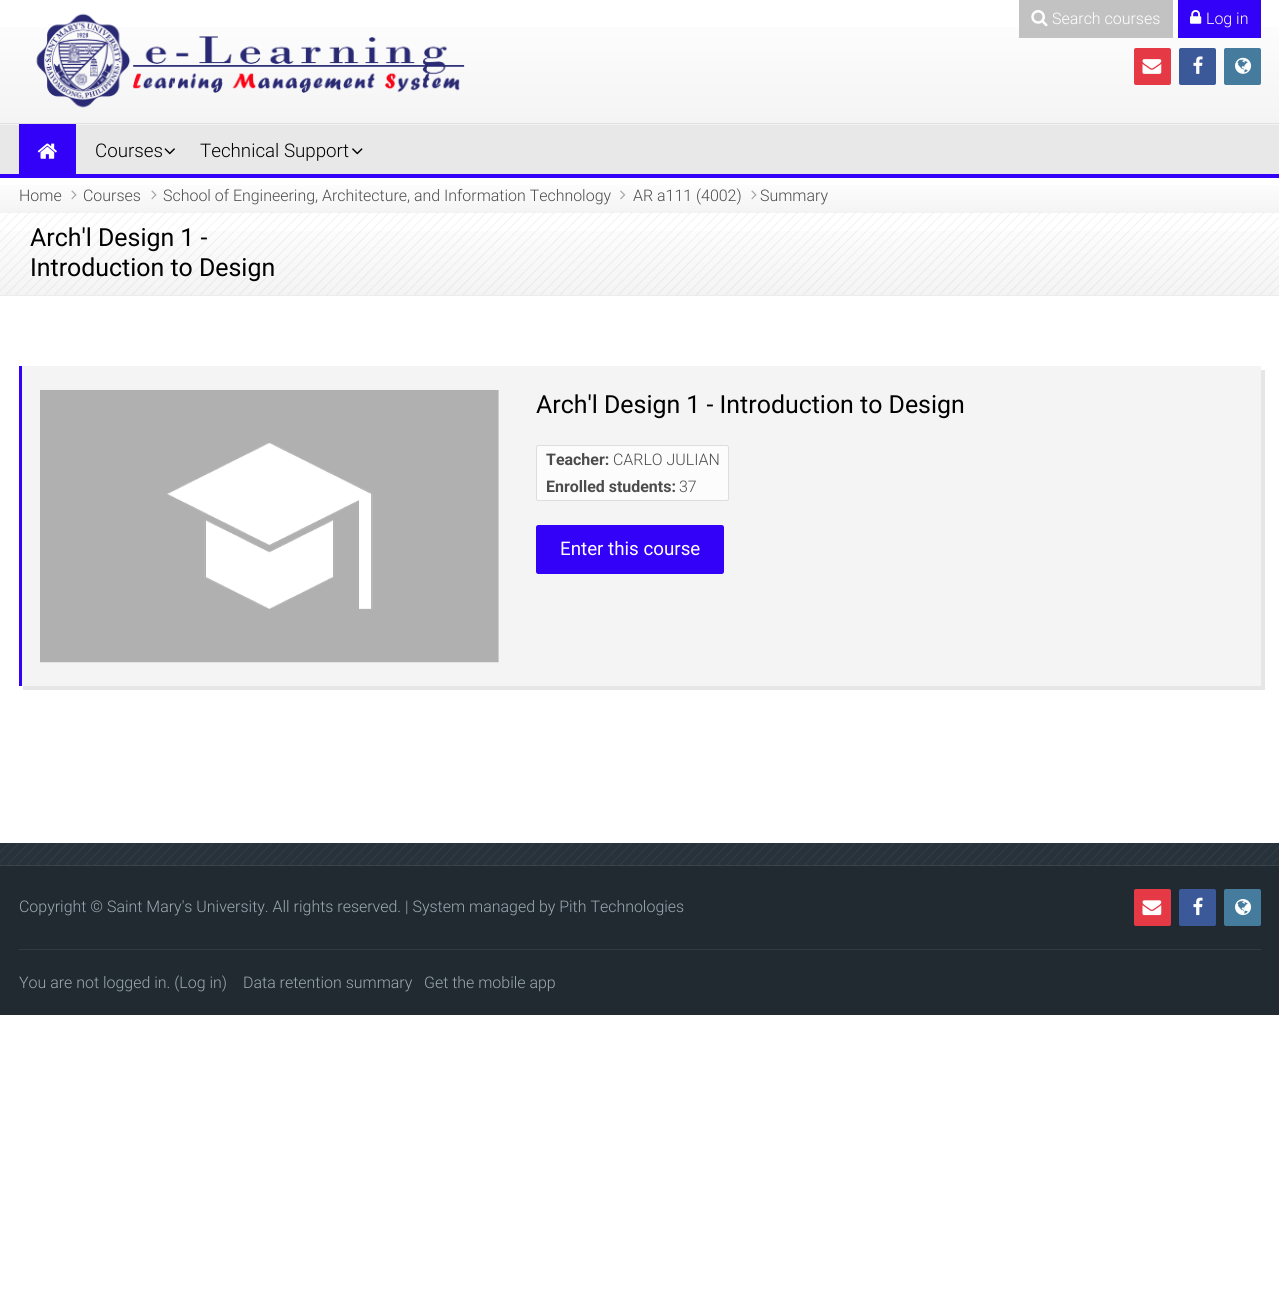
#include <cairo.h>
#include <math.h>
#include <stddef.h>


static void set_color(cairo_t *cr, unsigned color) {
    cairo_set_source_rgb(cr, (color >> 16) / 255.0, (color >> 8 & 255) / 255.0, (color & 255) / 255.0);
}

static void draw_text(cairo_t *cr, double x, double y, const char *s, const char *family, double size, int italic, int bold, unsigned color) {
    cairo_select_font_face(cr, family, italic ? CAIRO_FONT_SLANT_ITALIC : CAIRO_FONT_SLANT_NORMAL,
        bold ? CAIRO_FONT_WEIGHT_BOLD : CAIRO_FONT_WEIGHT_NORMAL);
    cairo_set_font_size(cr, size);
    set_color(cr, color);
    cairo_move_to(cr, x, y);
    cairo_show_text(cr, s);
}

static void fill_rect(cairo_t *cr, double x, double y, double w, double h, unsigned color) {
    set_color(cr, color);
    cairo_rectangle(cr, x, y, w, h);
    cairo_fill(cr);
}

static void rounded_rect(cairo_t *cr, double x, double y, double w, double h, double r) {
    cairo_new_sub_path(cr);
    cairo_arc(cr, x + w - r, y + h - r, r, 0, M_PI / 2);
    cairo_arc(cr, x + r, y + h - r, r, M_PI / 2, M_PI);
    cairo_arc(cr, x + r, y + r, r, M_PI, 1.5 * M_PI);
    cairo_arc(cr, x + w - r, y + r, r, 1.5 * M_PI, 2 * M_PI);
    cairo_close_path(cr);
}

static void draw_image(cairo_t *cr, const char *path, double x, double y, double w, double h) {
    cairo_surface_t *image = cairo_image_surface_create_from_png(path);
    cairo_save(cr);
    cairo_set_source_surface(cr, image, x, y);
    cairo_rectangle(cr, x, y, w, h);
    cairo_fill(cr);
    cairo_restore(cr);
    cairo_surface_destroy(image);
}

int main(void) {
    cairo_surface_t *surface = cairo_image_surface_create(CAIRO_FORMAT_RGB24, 1279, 1289);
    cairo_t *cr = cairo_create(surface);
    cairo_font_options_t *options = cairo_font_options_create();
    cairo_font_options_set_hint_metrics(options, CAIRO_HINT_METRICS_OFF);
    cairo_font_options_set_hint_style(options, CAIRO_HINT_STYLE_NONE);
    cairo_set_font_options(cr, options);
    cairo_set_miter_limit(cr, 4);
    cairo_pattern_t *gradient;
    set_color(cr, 0xFFFFFF);
    cairo_paint(cr);
    gradient = cairo_pattern_create_linear(640, -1.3, 640, 123);
    cairo_pattern_add_color_stop_rgba(gradient, 0, 1, 1, 1, 1);
    cairo_pattern_add_color_stop_rgba(gradient, 1, 0.957, 0.957, 0.957, 1);
    cairo_set_source(cr, gradient);
    cairo_pattern_destroy(gradient);
    cairo_rectangle(cr, 0, 27, 1279, 96);
    cairo_fill(cr);
    fill_rect(cr, 1019, 0, 154, 38, 0xC2C2C2);
    draw_image(cr, "assets/img1.png", 1031, 10, 17, 17);
    draw_text(cr, 1052, 24, "Search courses", "Roboto Light", 15.95, 0, 0, 0xFFFFFF);
    fill_rect(cr, 1178, 0, 83, 38, 0x3401F8);
    draw_image(cr, "assets/img2.png", 1190, 10, 12, 14);
    draw_text(cr, 1206, 24, "Log in", "Roboto Light", 15.95, 0, 0, 0xFFFFFF);
    fill_rect(cr, 0, 123, 1279, 1, 0xE0E0E0);
    draw_image(cr, "assets/img3.png", 36, 13, 429, 95);
    set_color(cr, 0xE63946);
    rounded_rect(cr, 1134, 48, 37, 37, 2);
    cairo_fill(cr);
    draw_image(cr, "assets/img4.png", 1142, 59, 20, 15);
    set_color(cr, 0x3B5998);
    rounded_rect(cr, 1179, 48, 37, 37, 2);
    cairo_fill(cr);
    draw_image(cr, "assets/img5.png", 1193, 56, 10, 18);
    set_color(cr, 0x457B9D);
    rounded_rect(cr, 1224, 48, 37, 37, 2);
    cairo_fill(cr);
    draw_image(cr, "assets/img6.png", 1235, 57, 17, 17);
    fill_rect(cr, 0, 125, 1279, 49, 0xE8E8E8);
    fill_rect(cr, 0, 124, 1279, 1, 0xF4F4F4);
    fill_rect(cr, 19, 124, 57, 50, 0x3401F8);
    draw_image(cr, "assets/img7.png", 37, 143, 20, 16);
    draw_text(cr, 95, 157, "Courses", "Roboto Light", 18.75, 0, 0, 0x000000);
    draw_image(cr, "assets/img8.png", 164, 148, 11, 7);
    draw_text(cr, 200, 157, "Technical Support", "Roboto Light", 18.75, 0, 0, 0x000000);
    draw_image(cr, "assets/img9.png", 352, 148, 11, 7);
    fill_rect(cr, 0, 174, 1279, 4, 0x3401F8);
    gradient = cairo_pattern_create_linear(640, 177, 640, 213);
    cairo_pattern_add_color_stop_rgba(gradient, 0, 1, 1, 1, 1);
    cairo_pattern_add_color_stop_rgba(gradient, 1, 0.957, 0.957, 0.957, 1);
    cairo_set_source(cr, gradient);
    cairo_pattern_destroy(gradient);
    cairo_rectangle(cr, 0, 185, 1279, 28);
    cairo_fill(cr);
    draw_text(cr, 19, 201, "Home", "Roboto Light", 15.95, 0, 0, 0x4C4C4C);
    draw_image(cr, "assets/img10.png", 71, 190, 6, 10);
    draw_text(cr, 83, 201, "Courses", "Roboto Light", 15.95, 0, 0, 0x4C4C4C);
    draw_image(cr, "assets/img10.png", 151, 190, 6, 10);
    draw_text(cr, 163, 201, "School of Engineering, Architecture, and Information Technology", "Roboto Light", 15.95, 0, 0, 0x4C4C4C);
    draw_image(cr, "assets/img11.png", 620, 190, 6, 10);
    draw_text(cr, 633, 201, "AR a111 (4002)", "Roboto Light", 15.95, 0, 0, 0x4C4C4C);
    draw_image(cr, "assets/img10.png", 751, 190, 6, 10);
    draw_text(cr, 760, 201, "Summary", "Roboto Light", 15.95, 0, 0, 0x4C4C4C);
    gradient = cairo_pattern_create_linear(640, 212, 640, 296);
    cairo_pattern_add_color_stop_rgba(gradient, 0, 1, 1, 1, 1);
    cairo_pattern_add_color_stop_rgba(gradient, 1, 0.957, 0.957, 0.957, 1);
    cairo_set_source(cr, gradient);
    cairo_pattern_destroy(gradient);
    cairo_rectangle(cr, 0, 231, 1279, 64);
    cairo_fill(cr);
    draw_image(cr, "assets/img12.png", 0, 212, 1279, 83);
    fill_rect(cr, 0, 295, 1279, 1, 0xECECEC);
    draw_text(cr, 30, 246, "Arch'l Design 1 -", "Roboto", 24.9, 0, 0, 0x000000);
    draw_text(cr, 30, 276, "Introduction to Design", "Roboto", 24.9, 0, 0, 0x000000);
    set_color(cr, 0xE6E6E6);
    cairo_new_path(cr);
    cairo_move_to(cr, 23, 686);
    cairo_line_to(cr, 23, 690);
    cairo_line_to(cr, 1265, 690);
    cairo_line_to(cr, 1265, 370);
    cairo_line_to(cr, 1261, 370);
    cairo_line_to(cr, 1261, 686);
    cairo_close_path(cr);
    cairo_fill(cr);
    fill_rect(cr, 22, 366, 1239, 320, 0xF4F4F4);
    fill_rect(cr, 19, 366, 3, 320, 0x3401F8);
    draw_image(cr, "assets/img13.png", 40, 390, 459, 273);
    draw_text(cr, 536, 413, "Arch'l Design 1 - Introduction to Design", "Roboto", 24.9, 0, 0, 0x000000);
    set_color(cr, 0xFCFCFC);
    rounded_rect(cr, 536.5, 445.5, 192, 55, 2);
    cairo_fill_preserve(cr);
    set_color(cr, 0xDDDDDD);
    cairo_set_line_width(cr, 1);
    cairo_stroke(cr);
    draw_text(cr, 546, 465, "Teacher:", "Roboto", 15.95, 0, 1, 0x4C4C4C);
    draw_text(cr, 613, 465, "CARLO JULIAN", "Roboto Light", 15.95, 0, 0, 0x4C4C4C);
    draw_text(cr, 546, 492, "Enrolled students:", "Roboto", 15.95, 0, 1, 0x4C4C4C);
    draw_text(cr, 679, 492, "37", "Roboto Light", 15.95, 0, 0, 0x4C4C4C);
    set_color(cr, 0x3401F8);
    rounded_rect(cr, 536.5, 525.5, 187, 48, 2);
    cairo_fill_preserve(cr);
    cairo_stroke(cr);
    draw_text(cr, 560, 555, "Enter this course", "Roboto", 18.75, 0, 0, 0xFFFFFF);
    fill_rect(cr, 0, 843, 1279, 23, 0x27323A);
    draw_image(cr, "assets/img14.png", 0, 843, 1279, 23);
    cairo_set_source_rgba(cr, 1, 1, 1, 0.08);
    cairo_rectangle(cr, 0, 865, 1279, 1);
    cairo_fill(cr);
    fill_rect(cr, 0, 866, 1279, 149, 0x212A31);
    draw_text(cr, 19, 912, "Copyright © Saint Mary's University. All rights reserved. | System managed by Pith Technologies", "Roboto Light", 15.95, 0, 0, 0x9CA7AF);
    set_color(cr, 0xE63946);
    rounded_rect(cr, 1134, 889, 37, 37, 2);
    cairo_fill(cr);
    draw_image(cr, "assets/img15.png", 1142, 900, 20, 16);
    set_color(cr, 0x3B5998);
    rounded_rect(cr, 1179, 889, 37, 37, 2);
    cairo_fill(cr);
    draw_image(cr, "assets/img16.png", 1193, 897, 10, 19);
    set_color(cr, 0x457B9D);
    rounded_rect(cr, 1224, 889, 37, 37, 2);
    cairo_fill(cr);
    draw_image(cr, "assets/img17.png", 1235, 899, 17, 17);
    fill_rect(cr, 19, 949, 1242, 1, 0x333B41);
    draw_text(cr, 19, 988, "You are not logged in. (Log in)", "Roboto Light", 15.95, 0, 0, 0x9CA7AF);
    draw_text(cr, 243, 988, "Data retention summary", "Roboto Light", 15.95, 0, 0, 0x9CA7AF);
    draw_text(cr, 424, 988, "Get the mobile app", "Roboto Light", 15.95, 0, 0, 0x9CA7AF);
    cairo_surface_write_to_png(surface, "output.png");
    cairo_font_options_destroy(options);
    cairo_destroy(cr);
    cairo_surface_destroy(surface);
    return 0;
}
